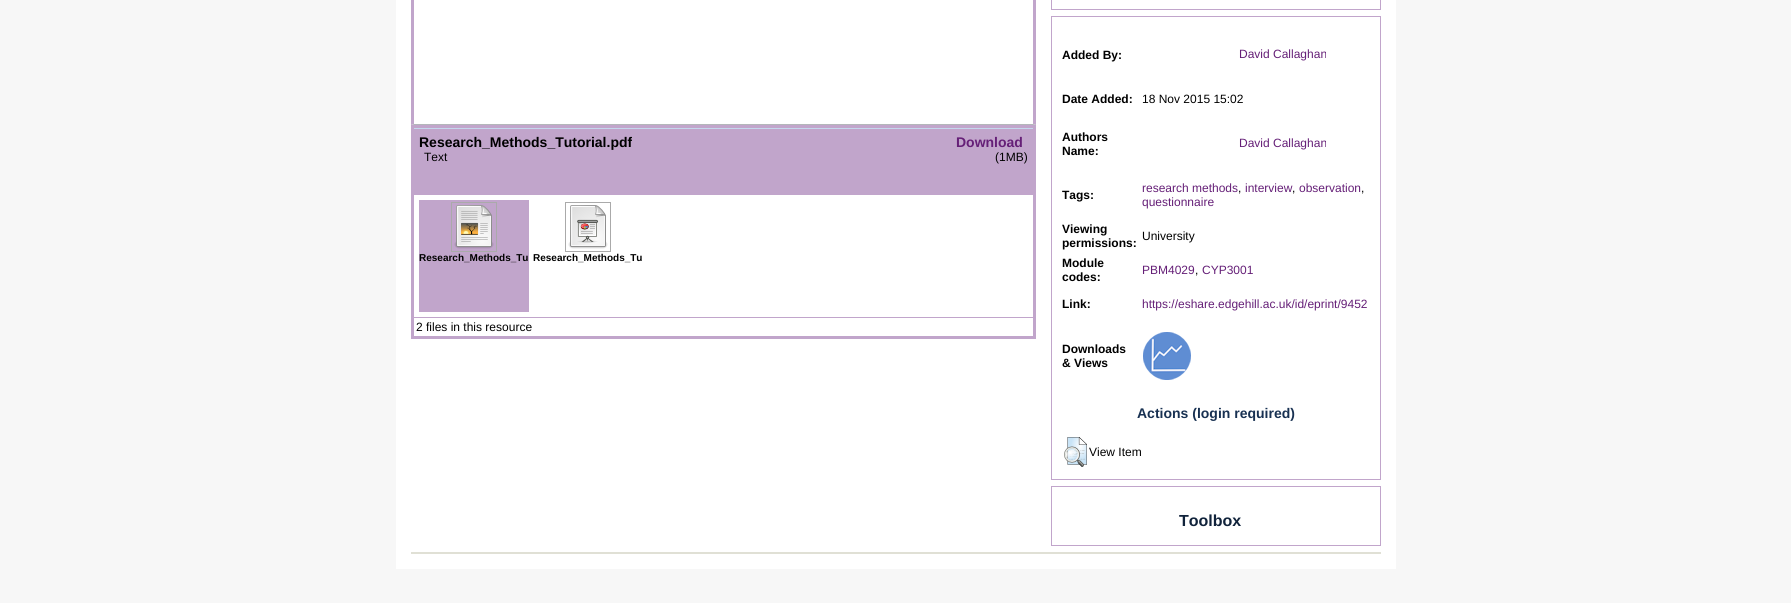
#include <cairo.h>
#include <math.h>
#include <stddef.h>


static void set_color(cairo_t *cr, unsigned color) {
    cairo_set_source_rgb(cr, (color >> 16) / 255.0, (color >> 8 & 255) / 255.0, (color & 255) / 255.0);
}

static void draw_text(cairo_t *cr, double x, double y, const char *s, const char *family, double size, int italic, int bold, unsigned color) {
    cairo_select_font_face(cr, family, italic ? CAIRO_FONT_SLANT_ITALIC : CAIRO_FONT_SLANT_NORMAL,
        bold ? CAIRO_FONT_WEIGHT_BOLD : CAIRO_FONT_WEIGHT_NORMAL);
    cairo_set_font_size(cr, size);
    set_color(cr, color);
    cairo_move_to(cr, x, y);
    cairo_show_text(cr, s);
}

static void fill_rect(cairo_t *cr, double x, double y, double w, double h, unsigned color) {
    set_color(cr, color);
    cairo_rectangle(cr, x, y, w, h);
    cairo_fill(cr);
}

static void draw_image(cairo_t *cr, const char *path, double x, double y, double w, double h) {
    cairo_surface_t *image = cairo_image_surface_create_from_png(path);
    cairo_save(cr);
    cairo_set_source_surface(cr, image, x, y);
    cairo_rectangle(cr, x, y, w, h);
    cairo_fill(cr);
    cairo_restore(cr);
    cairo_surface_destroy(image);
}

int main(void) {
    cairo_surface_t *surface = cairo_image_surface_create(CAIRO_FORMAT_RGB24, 1791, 603);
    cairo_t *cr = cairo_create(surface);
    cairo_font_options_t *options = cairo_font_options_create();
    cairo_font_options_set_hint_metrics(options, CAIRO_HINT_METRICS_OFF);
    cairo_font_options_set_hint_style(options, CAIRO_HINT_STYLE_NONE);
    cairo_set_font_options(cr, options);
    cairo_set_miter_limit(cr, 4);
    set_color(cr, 0xF7F7F7);
    cairo_paint(cr);
    fill_rect(cr, 396, 0, 1000, 569, 0xFFFFFF);
    fill_rect(cr, 411, 552, 970, 2, 0xE0E0D5);
    set_color(cr, 0xC1A5CB);
    cairo_new_path(cr);
    cairo_move_to(cr, 1036, -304);
    cairo_line_to(cr, 1036, 125);
    cairo_line_to(cr, 1033, 124);
    cairo_line_to(cr, 1033, -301);
    cairo_close_path(cr);
    cairo_fill(cr);
    set_color(cr, 0xB3B7BA);
    cairo_new_path(cr);
    cairo_move_to(cr, 1036, 125);
    cairo_line_to(cr, 411, 125);
    cairo_line_to(cr, 414, 124);
    cairo_line_to(cr, 1033, 124);
    cairo_close_path(cr);
    cairo_fill(cr);
    set_color(cr, 0xC1A5CB);
    cairo_new_path(cr);
    cairo_move_to(cr, 411, 125);
    cairo_line_to(cr, 411, -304);
    cairo_line_to(cr, 414, -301);
    cairo_line_to(cr, 414, 124);
    cairo_close_path(cr);
    cairo_fill(cr);
    cairo_rectangle(cr, 412.5, 126.5, 622, 211);
    cairo_set_line_width(cr, 3);
    cairo_stroke(cr);
    fill_rect(cr, 414, 129, 619, 66, 0xC1A5CB);
    fill_rect(cr, 414, 128, 619, 1, 0xC4D7ED);
    draw_text(cr, 419, 147, "Research_Methods_Tutorial.pdf", "Liberation Sans", 14, 0, 1, 0x000000);
    draw_text(cr, 424, 161, "Text", "Liberation Sans", 12, 0, 0, 0x000000);
    draw_text(cr, 956, 147, "Download", "Liberation Sans", 14, 0, 1, 0x651F77);
    draw_text(cr, 995, 161, "(1MB)", "Liberation Sans", 12, 0, 0, 0x000000);
    fill_rect(cr, 419, 200, 110, 112, 0xC1A5CB);
    cairo_rectangle(cr, 451.5, 202.5, 45, 49);
    set_color(cr, 0xAAAAAA);
    cairo_set_line_width(cr, 1);
    cairo_stroke(cr);
    draw_image(cr, "assets/img1.png", 454, 205, 40, 44);
    draw_text(cr, 419, 261, "Research_Methods_Tu", "Liberation Sans", 10, 0, 1, 0x000000);
    cairo_rectangle(cr, 565.5, 202.5, 45, 49);
    set_color(cr, 0xAAAAAA);
    cairo_stroke(cr);
    draw_image(cr, "assets/img2.png", 568, 205, 40, 44);
    draw_text(cr, 533, 261, "Research_Methods_Tu", "Liberation Sans", 10, 0, 1, 0x000000);
    fill_rect(cr, 414, 317, 619, 1, 0xC1A5CB);
    draw_text(cr, 416, 331, "2 files in this resource", "Liberation Sans", 12, 0, 0, 0x000000);
    cairo_rectangle(cr, 1051.5, -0.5, 329, 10);
    set_color(cr, 0xC1A5CB);
    cairo_stroke(cr);
    cairo_rectangle(cr, 1051.5, 16.5, 329, 463);
    cairo_stroke(cr);
    draw_text(cr, 1062, 59, "Added By:", "Liberation Sans", 12, 0, 1, 0x000000);
    draw_text(cr, 1239, 58, "David Callaghan", "Liberation Sans", 12, 0, 0, 0x651F77);
    draw_text(cr, 1062, 103, "Date Added:", "Liberation Sans", 12, 0, 1, 0x000000);
    draw_text(cr, 1142, 103, "18 Nov 2015 15:02", "Liberation Sans", 12, 0, 0, 0x000000);
    draw_text(cr, 1062, 141, "Authors", "Liberation Sans", 12, 0, 1, 0x000000);
    draw_text(cr, 1062, 155, "Name:", "Liberation Sans", 12, 0, 1, 0x000000);
    draw_text(cr, 1239, 147, "David Callaghan", "Liberation Sans", 12, 0, 0, 0x651F77);
    draw_text(cr, 1062, 199, "Tags:", "Liberation Sans", 12, 0, 1, 0x000000);
    draw_text(cr, 1142, 192, "research methods", "Liberation Sans", 12, 0, 0, 0x651F77);
    draw_text(cr, 1238, 192, ",", "Liberation Sans", 12, 0, 0, 0x000000);
    draw_text(cr, 1245, 192, "interview", "Liberation Sans", 12, 0, 0, 0x651F77);
    draw_text(cr, 1292, 192, ",", "Liberation Sans", 12, 0, 0, 0x000000);
    draw_text(cr, 1299, 192, "observation", "Liberation Sans", 12, 0, 0, 0x651F77);
    draw_text(cr, 1361, 192, ",", "Liberation Sans", 12, 0, 0, 0x000000);
    draw_text(cr, 1142, 206, "questionnaire", "Liberation Sans", 12, 0, 0, 0x651F77);
    draw_text(cr, 1062, 233, "Viewing", "Liberation Sans", 12, 0, 1, 0x000000);
    draw_text(cr, 1062, 247, "permissions:", "Liberation Sans", 12, 0, 1, 0x000000);
    draw_text(cr, 1142, 240, "University", "Liberation Sans", 12, 0, 0, 0x000000);
    draw_text(cr, 1062, 267, "Module", "Liberation Sans", 12, 0, 1, 0x000000);
    draw_text(cr, 1062, 281, "codes:", "Liberation Sans", 12, 0, 1, 0x000000);
    draw_text(cr, 1142, 274, "PBM4029", "Liberation Sans", 12, 0, 0, 0x651F77);
    draw_text(cr, 1195, 274, ",", "Liberation Sans", 12, 0, 0, 0x000000);
    draw_text(cr, 1202, 274, "CYP3001", "Liberation Sans", 12, 0, 0, 0x651F77);
    draw_text(cr, 1062, 308, "Link:", "Liberation Sans", 12, 0, 1, 0x000000);
    draw_text(cr, 1142, 308, "https://eshare.edgehill.ac.uk/id/eprint/9452", "Liberation Sans", 12, 0, 0, 0x651F77);
    draw_text(cr, 1062, 353, "Downloads", "Liberation Sans", 12, 0, 1, 0x000000);
    draw_text(cr, 1062, 367, "& Views", "Liberation Sans", 12, 0, 1, 0x000000);
    draw_image(cr, "assets/img3.png", 1143, 332, 48, 48);
    draw_text(cr, 1137, 418, "Actions (login required)", "Liberation Sans", 14, 0, 1, 0x183152);
    draw_image(cr, "assets/img4.png", 1064, 437, 23, 30);
    draw_text(cr, 1089, 456, "View Item", "Liberation Sans", 12, 0, 0, 0x000000);
    cairo_rectangle(cr, 1051.5, 486.5, 329, 59);
    set_color(cr, 0xC1A5CB);
    cairo_stroke(cr);
    draw_text(cr, 1179, 526, "Toolbox", "Liberation Sans", 16, 0, 1, 0x11233B);
    cairo_surface_write_to_png(surface, "output.png");
    cairo_font_options_destroy(options);
    cairo_destroy(cr);
    cairo_surface_destroy(surface);
    return 0;
}
